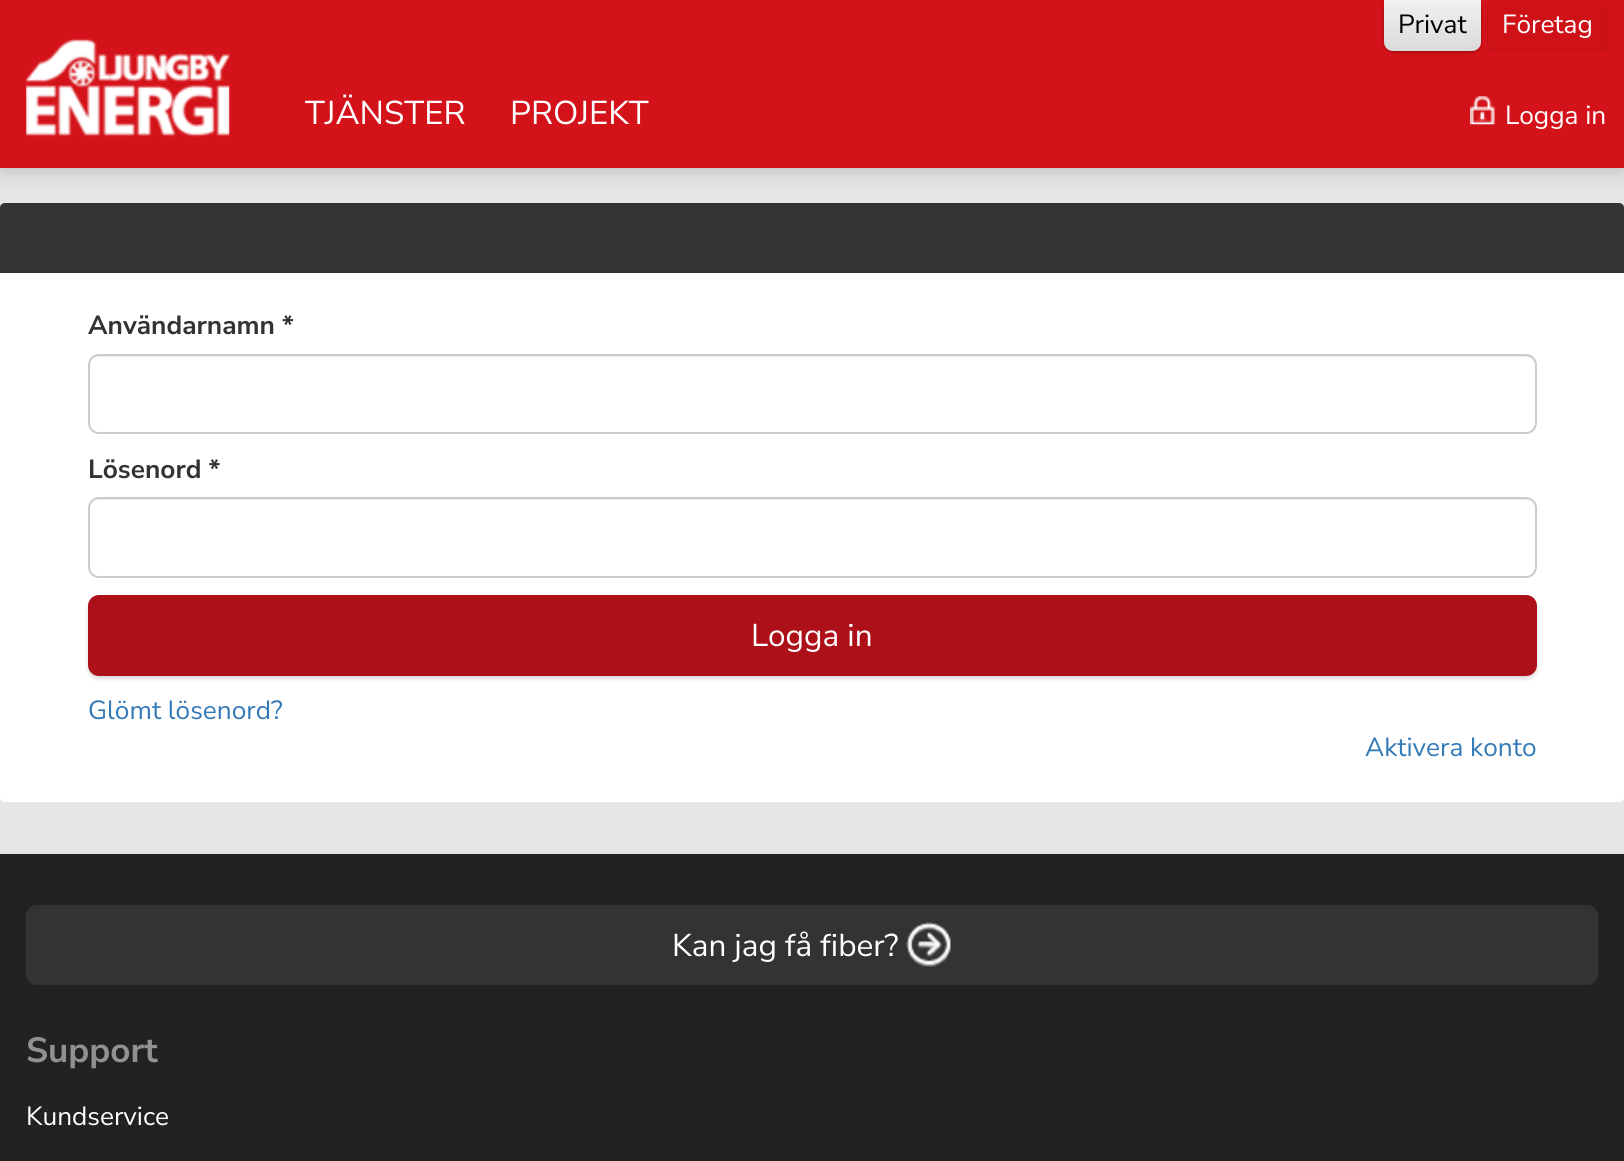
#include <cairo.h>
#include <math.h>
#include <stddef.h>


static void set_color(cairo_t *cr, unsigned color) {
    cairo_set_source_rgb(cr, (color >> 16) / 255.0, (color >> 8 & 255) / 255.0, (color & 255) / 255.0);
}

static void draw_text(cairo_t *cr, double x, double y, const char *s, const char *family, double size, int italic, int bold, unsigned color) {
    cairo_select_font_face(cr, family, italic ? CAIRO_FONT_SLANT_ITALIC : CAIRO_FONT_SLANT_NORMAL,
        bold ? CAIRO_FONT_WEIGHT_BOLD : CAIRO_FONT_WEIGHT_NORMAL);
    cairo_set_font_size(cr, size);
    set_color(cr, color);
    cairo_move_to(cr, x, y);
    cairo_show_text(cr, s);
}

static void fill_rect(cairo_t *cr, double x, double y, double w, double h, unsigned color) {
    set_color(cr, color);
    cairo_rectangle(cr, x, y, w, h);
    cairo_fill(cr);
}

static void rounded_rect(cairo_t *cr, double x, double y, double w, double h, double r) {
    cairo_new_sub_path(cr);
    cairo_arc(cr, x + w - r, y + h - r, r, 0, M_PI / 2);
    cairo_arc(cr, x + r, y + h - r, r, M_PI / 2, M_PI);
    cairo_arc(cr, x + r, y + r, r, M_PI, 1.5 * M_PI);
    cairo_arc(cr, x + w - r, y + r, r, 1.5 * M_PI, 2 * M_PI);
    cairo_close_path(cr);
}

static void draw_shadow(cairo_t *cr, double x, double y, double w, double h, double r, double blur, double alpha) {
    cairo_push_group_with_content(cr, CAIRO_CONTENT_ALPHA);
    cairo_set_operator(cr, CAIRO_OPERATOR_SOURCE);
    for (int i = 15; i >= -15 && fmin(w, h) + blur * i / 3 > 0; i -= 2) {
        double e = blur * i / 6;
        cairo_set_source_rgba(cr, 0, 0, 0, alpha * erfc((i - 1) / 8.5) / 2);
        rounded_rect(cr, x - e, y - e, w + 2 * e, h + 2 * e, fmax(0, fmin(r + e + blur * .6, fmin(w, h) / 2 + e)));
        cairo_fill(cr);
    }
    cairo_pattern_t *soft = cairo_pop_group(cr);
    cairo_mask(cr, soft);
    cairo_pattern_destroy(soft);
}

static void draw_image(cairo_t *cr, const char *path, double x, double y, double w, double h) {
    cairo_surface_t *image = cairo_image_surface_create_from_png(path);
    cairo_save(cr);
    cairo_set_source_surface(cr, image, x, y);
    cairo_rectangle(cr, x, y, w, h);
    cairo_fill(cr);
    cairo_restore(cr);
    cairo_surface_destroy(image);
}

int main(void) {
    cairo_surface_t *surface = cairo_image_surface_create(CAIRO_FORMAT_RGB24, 1624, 1161);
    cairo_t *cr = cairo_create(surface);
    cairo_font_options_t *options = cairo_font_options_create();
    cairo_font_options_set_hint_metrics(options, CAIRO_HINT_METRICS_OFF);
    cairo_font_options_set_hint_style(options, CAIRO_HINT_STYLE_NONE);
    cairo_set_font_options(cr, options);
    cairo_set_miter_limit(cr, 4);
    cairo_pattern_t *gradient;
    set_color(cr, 0x222222);
    cairo_paint(cr);
    fill_rect(cr, 0, 168, 1624, 686, 0xE6E6E6);
    set_color(cr, 0x333333);
    cairo_new_path(cr);
    cairo_move_to(cr, 5, 203);
    cairo_line_to(cr, 1619, 203);
    cairo_curve_to(cr, 1622, 203, 1624, 205, 1624, 208);
    cairo_line_to(cr, 1624, 273);
    cairo_line_to(cr, 0, 273);
    cairo_line_to(cr, 0, 208);
    cairo_curve_to(cr, 0, 205, 2, 203, 5, 203);
    cairo_close_path(cr);
    cairo_fill(cr);
    set_color(cr, 0x000000);
    draw_shadow(cr, 0, 0, 1624, 168, 0, 11.5, 0.22);
    fill_rect(cr, 0, 0, 1624, 168, 0xD41219);
    draw_image(cr, "assets/img1.png", 26, 38, 204, 99);
    set_color(cr, 0x000000);
    draw_shadow(cr, 1383, -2, 99, 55, 11, 1, 0.2);
    gradient = cairo_pattern_create_linear(1432, 0, 1432, 51);
    cairo_pattern_add_color_stop_rgba(gradient, 0, 0.941, 0.941, 0.941, 1);
    cairo_pattern_add_color_stop_rgba(gradient, 1, 0.859, 0.859, 0.859, 1);
    cairo_set_source(cr, gradient);
    cairo_pattern_destroy(gradient);
    cairo_new_path(cr);
    cairo_move_to(cr, 1384, 0);
    cairo_line_to(cr, 1481, 0);
    cairo_line_to(cr, 1481, 42);
    cairo_curve_to(cr, 1481, 47, 1477, 51, 1472, 51);
    cairo_line_to(cr, 1393, 51);
    cairo_curve_to(cr, 1388, 51, 1384, 47, 1384, 42);
    cairo_close_path(cr);
    cairo_fill(cr);
    draw_text(cr, 1398, 33, "Privat", "Nunito Sans", 26.25, 0, 0, 0x000000);
    cairo_save(cr);
    cairo_set_fill_rule(cr, CAIRO_FILL_RULE_EVEN_ODD);
    cairo_new_path(cr);
    cairo_move_to(cr, 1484, 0);
    cairo_line_to(cr, 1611, 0);
    cairo_line_to(cr, 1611, 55);
    cairo_line_to(cr, 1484, 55);
    cairo_close_path(cr);
    cairo_move_to(cr, 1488, 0);
    cairo_line_to(cr, 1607, 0);
    cairo_line_to(cr, 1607, 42);
    cairo_curve_to(cr, 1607, 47, 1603, 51, 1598, 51);
    cairo_line_to(cr, 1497, 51);
    cairo_curve_to(cr, 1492, 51, 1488, 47, 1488, 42);
    cairo_close_path(cr);
    cairo_clip(cr);
    set_color(cr, 0x000000);
    draw_shadow(cr, 1488, 0, 119, 51, 9, 1, 0.25);
    cairo_restore(cr);
    cairo_set_source_rgba(cr, 0, 0, 0, 0.03);
    cairo_rectangle(cr, 1488, 0, 119, 51);
    cairo_fill(cr);
    draw_text(cr, 1502, 33, "Företag", "Nunito Sans", 26.25, 0, 0, 0xFFFFFF);
    draw_text(cr, 305, 124, "TJÄNSTER", "Nunito Sans", 33, 0, 0, 0xFFFFFF);
    draw_text(cr, 510, 124, "PROJEKT", "Nunito Sans", 33, 0, 0, 0xFFFFFF);
    draw_image(cr, "assets/img2.png", 1470, 96, 25, 29);
    draw_text(cr, 1505, 124, "Logga in", "Nunito Sans", 26.25, 0, 0, 0xFFFFFF);
    cairo_new_path(cr);
    cairo_move_to(cr, 0, 273);
    cairo_line_to(cr, 1624, 273);
    cairo_line_to(cr, 1624, 797);
    cairo_curve_to(cr, 1624, 800, 1622, 802, 1619, 802);
    cairo_line_to(cr, 5, 802);
    cairo_curve_to(cr, 2, 802, 0, 800, 0, 797);
    cairo_close_path(cr);
    cairo_fill(cr);
    draw_text(cr, 88, 334, "Användarnamn *", "Nunito Sans", 26.25, 0, 1, 0x333333);
    set_color(cr, 0xECECEC);
    cairo_new_path(cr);
    cairo_move_to(cr, 98, 357);
    cairo_line_to(cr, 1526, 357);
    cairo_curve_to(cr, 1531, 357, 1535, 361, 1535, 366);
    cairo_line_to(cr, 1535, 364);
    cairo_curve_to(cr, 1535, 359, 1531, 355, 1526, 355);
    cairo_line_to(cr, 98, 355);
    cairo_curve_to(cr, 93, 355, 89, 359, 89, 364);
    cairo_line_to(cr, 89, 366);
    cairo_curve_to(cr, 89, 361, 93, 357, 98, 357);
    cairo_close_path(cr);
    cairo_fill(cr);
    rounded_rect(cr, 89, 355, 1447, 78, 10);
    set_color(cr, 0xCCCCCC);
    cairo_stroke(cr);
    draw_text(cr, 88, 478, "Lösenord *", "Nunito Sans", 26.25, 0, 1, 0x333333);
    set_color(cr, 0xECECEC);
    cairo_new_path(cr);
    cairo_move_to(cr, 98, 500);
    cairo_line_to(cr, 1526, 500);
    cairo_curve_to(cr, 1531, 500, 1535, 504, 1535, 509);
    cairo_curve_to(cr, 1535, 504, 1532, 499, 1526, 499);
    cairo_line_to(cr, 98, 499);
    cairo_curve_to(cr, 92, 499, 89, 504, 89, 509);
    cairo_curve_to(cr, 89, 504, 93, 500, 98, 500);
    cairo_close_path(cr);
    cairo_fill(cr);
    rounded_rect(cr, 89, 498, 1447, 79, 10);
    set_color(cr, 0xCCCCCC);
    cairo_stroke(cr);
    set_color(cr, 0x000000);
    draw_shadow(cr, 88, 599, 1449, 80, 11, 2, 0.15);
    set_color(cr, 0xAD1018);
    rounded_rect(cr, 89, 596, 1447, 79, 10);
    cairo_fill_preserve(cr);
    cairo_stroke(cr);
    draw_text(cr, 751, 646, "Logga in", "Nunito Sans", 31.5, 0, 0, 0xFFFFFF);
    draw_text(cr, 88, 719, "Glömt lösenord?", "Nunito Sans", 26.25, 0, 0, 0x337AB7);
    draw_text(cr, 1365, 756, "Aktivera konto", "Nunito Sans", 26.25, 0, 0, 0x337AB7);
    set_color(cr, 0x333333);
    rounded_rect(cr, 27, 906, 1570, 78, 10);
    cairo_fill_preserve(cr);
    cairo_stroke(cr);
    draw_text(cr, 672, 956, "Kan jag få fiber?", "Nunito Sans", 31.5, 0, 0, 0xFFFFFF);
    draw_image(cr, "assets/img3.png", 906, 922, 45, 45);
    draw_text(cr, 26, 1062, "Support", "Nunito Sans", 35, 0, 1, 0x919191);
    draw_text(cr, 26, 1125, "Kundservice", "Nunito Sans", 26.25, 0, 0, 0xFFFFFF);
    cairo_surface_write_to_png(surface, "output.png");
    cairo_font_options_destroy(options);
    cairo_destroy(cr);
    cairo_surface_destroy(surface);
    return 0;
}
